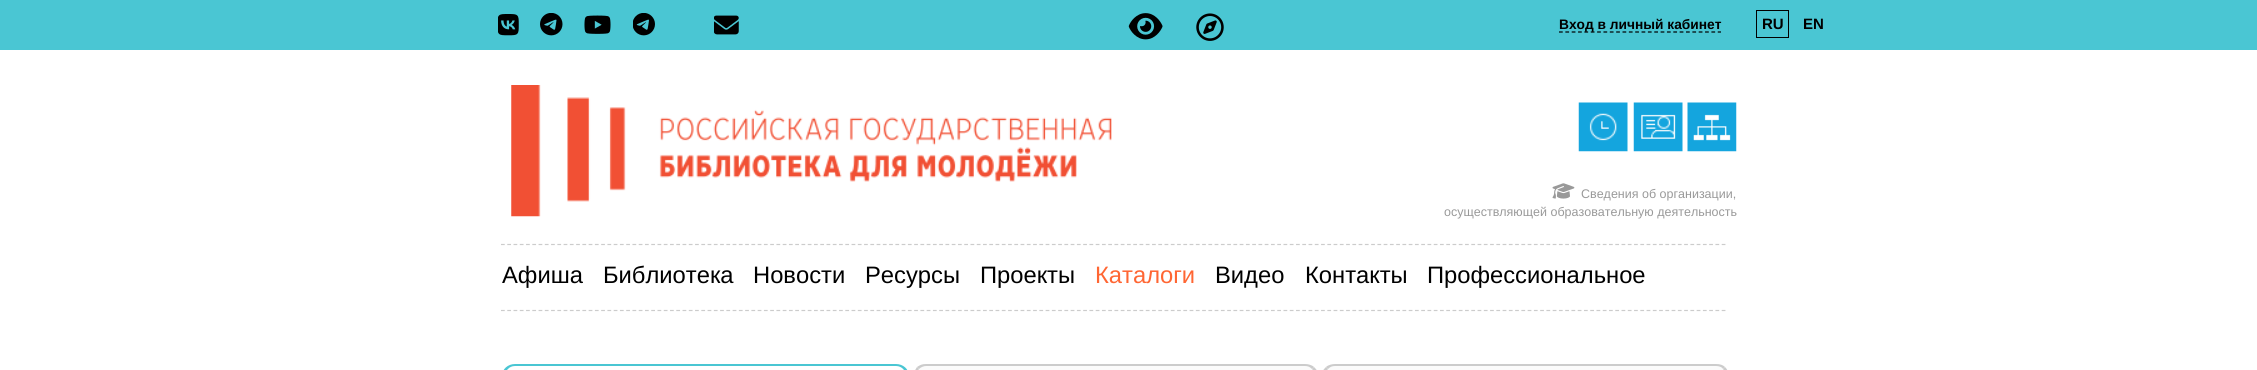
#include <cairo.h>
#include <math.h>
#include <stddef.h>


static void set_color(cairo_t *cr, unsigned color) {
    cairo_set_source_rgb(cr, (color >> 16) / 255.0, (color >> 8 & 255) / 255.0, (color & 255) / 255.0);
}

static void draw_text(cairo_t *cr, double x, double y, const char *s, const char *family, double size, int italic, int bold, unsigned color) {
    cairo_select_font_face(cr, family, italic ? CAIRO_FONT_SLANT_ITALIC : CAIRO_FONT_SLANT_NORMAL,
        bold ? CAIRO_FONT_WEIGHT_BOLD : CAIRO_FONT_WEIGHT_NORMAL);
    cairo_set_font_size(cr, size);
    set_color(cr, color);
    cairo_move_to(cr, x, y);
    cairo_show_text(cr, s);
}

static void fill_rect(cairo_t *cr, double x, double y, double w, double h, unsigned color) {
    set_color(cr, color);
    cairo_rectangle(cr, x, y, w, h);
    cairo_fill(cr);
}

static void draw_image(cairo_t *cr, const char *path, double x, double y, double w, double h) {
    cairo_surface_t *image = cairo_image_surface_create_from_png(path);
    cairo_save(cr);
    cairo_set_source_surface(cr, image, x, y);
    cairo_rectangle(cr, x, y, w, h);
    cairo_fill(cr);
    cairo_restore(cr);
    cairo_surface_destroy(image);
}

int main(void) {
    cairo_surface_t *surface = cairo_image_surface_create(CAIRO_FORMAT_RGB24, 2257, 370);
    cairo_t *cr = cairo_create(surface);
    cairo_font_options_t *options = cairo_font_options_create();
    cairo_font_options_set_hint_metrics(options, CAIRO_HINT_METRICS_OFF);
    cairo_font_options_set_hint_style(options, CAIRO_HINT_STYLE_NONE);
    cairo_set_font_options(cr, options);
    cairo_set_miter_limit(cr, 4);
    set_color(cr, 0xFFFFFF);
    cairo_paint(cr);
    fill_rect(cr, 0, 0, 2257, 50, 0x4AC6D3);
    draw_image(cr, "assets/img1.png", 498, 14, 21, 22);
    draw_image(cr, "assets/img2.png", 540, 13, 23, 23);
    draw_image(cr, "assets/img3.png", 584, 15, 27, 19);
    draw_image(cr, "assets/img4.png", 633, 13, 22, 23);
    draw_image(cr, "assets/img5.png", 714, 15, 25, 20);
    draw_image(cr, "assets/img6.png", 1128, 13, 35, 27);
    draw_image(cr, "assets/img7.png", 1196, 13, 28, 28);
    cairo_new_path(cr);
    cairo_move_to(cr, 1559, 32);
    cairo_line_to(cr, 1721, 32);
    set_color(cr, 0x000000);
    cairo_set_line_width(cr, 1.2);
    cairo_set_dash(cr, (double[]){3.75, 2.6}, 2, 0);
    cairo_stroke(cr);
    draw_text(cr, 1559, 29, "Вход в личный кабинет", "Liberation Sans", 13.75, 0, 1, 0x000000);
    cairo_rectangle(cr, 1756.5, 10.5, 32, 27);
    cairo_set_line_width(cr, 1);
    cairo_set_dash(cr, NULL, 0, 0);
    cairo_stroke(cr);
    draw_text(cr, 1762, 29, "RU", "Liberation Sans", 15, 0, 1, 0x000000);
    draw_text(cr, 1803, 29, "EN", "Liberation Sans", 15, 0, 1, 0x000000);
    draw_image(cr, "assets/img8.png", 511, 85, 601, 132);
    draw_image(cr, "assets/img9.png", 1578, 102, 50, 50);
    draw_image(cr, "assets/img10.png", 1633, 102, 50, 50);
    draw_image(cr, "assets/img11.png", 1687, 102, 50, 50);
    draw_image(cr, "assets/img12.png", 1552, 183, 23, 16);
    draw_text(cr, 1581, 198, "Сведения об организации,", "Liberation Sans", 12.5, 0, 0, 0x999999);
    draw_text(cr, 1444, 216, "осуществляющей образовательную деятельность", "Liberation Sans", 12.5, 0, 0, 0x999999);
    cairo_new_path(cr);
    cairo_move_to(cr, 501, 244.5);
    cairo_line_to(cr, 1726, 244.5);
    set_color(cr, 0xCCCCCC);
    cairo_set_line_width(cr, 1.2);
    cairo_set_dash(cr, (double[]){3.75, 2.51}, 2, 0);
    cairo_stroke(cr);
    cairo_new_path(cr);
    cairo_move_to(cr, 501, 310.5);
    cairo_line_to(cr, 1726, 310.5);
    cairo_stroke(cr);
    draw_text(cr, 502, 283, "Афиша", "Liberation Sans", 23.75, 0, 0, 0x000000);
    draw_text(cr, 603, 283, "Библиотека", "Liberation Sans", 23.75, 0, 0, 0x000000);
    draw_text(cr, 753, 283, "Новости", "Liberation Sans", 23.75, 0, 0, 0x000000);
    draw_text(cr, 865, 283, "Ресурсы", "Liberation Sans", 23.75, 0, 0, 0x000000);
    draw_text(cr, 980, 283, "Проекты", "Liberation Sans", 23.75, 0, 0, 0x000000);
    draw_text(cr, 1095, 283, "Каталоги", "Liberation Sans", 23.75, 0, 0, 0xFF6633);
    draw_text(cr, 1215, 283, "Видео", "Liberation Sans", 23.75, 0, 0, 0x000000);
    draw_text(cr, 1305, 283, "Контакты", "Liberation Sans", 23.75, 0, 0, 0x000000);
    draw_text(cr, 1427, 283, "Профессиональное", "Liberation Sans", 23.75, 0, 0, 0x000000);
    set_color(cr, 0x4AC6D3);
    cairo_set_fill_rule(cr, CAIRO_FILL_RULE_EVEN_ODD);
    cairo_new_path(cr);
    cairo_move_to(cr, 515, 364);
    cairo_line_to(cr, 896, 364);
    cairo_curve_to(cr, 903, 364, 909, 369, 909, 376);
    cairo_line_to(cr, 909, 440);
    cairo_line_to(cr, 502, 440);
    cairo_line_to(cr, 502, 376);
    cairo_curve_to(cr, 502, 369, 508, 364, 515, 364);
    cairo_close_path(cr);
    cairo_move_to(cr, 515, 366);
    cairo_line_to(cr, 896, 366);
    cairo_curve_to(cr, 902, 366, 906, 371, 906, 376);
    cairo_line_to(cr, 906, 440);
    cairo_line_to(cr, 505, 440);
    cairo_line_to(cr, 505, 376);
    cairo_curve_to(cr, 505, 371, 509, 366, 515, 366);
    cairo_close_path(cr);
    cairo_fill(cr);
    set_color(cr, 0xFBFBFB);
    cairo_new_path(cr);
    cairo_move_to(cr, 927, 364);
    cairo_line_to(cr, 1305, 364);
    cairo_curve_to(cr, 1312, 364, 1318, 370, 1318, 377);
    cairo_line_to(cr, 1318, 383);
    cairo_line_to(cr, 914, 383);
    cairo_line_to(cr, 914, 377);
    cairo_curve_to(cr, 914, 370, 920, 364, 927, 364);
    cairo_close_path(cr);
    cairo_fill(cr);
    set_color(cr, 0xCCCCCC);
    cairo_set_fill_rule(cr, CAIRO_FILL_RULE_WINDING);
    cairo_new_path(cr);
    cairo_move_to(cr, 926, 364);
    cairo_curve_to(cr, 922, 364, 920, 365, 917, 367);
    cairo_line_to(cr, 919, 369);
    cairo_curve_to(cr, 921, 367, 924, 366, 926, 366);
    cairo_line_to(cr, 1305, 366);
    cairo_curve_to(cr, 1308, 366, 1310, 367, 1312, 369);
    cairo_line_to(cr, 1314, 367);
    cairo_curve_to(cr, 1312, 365, 1308, 364, 1305, 364);
    cairo_close_path(cr);
    cairo_fill(cr);
    cairo_new_path(cr);
    cairo_move_to(cr, 1314, 367);
    cairo_curve_to(cr, 1316, 369, 1317, 370, 1318, 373);
    cairo_line_to(cr, 1318, 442);
    cairo_line_to(cr, 1315, 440);
    cairo_line_to(cr, 1315, 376);
    cairo_curve_to(cr, 1315, 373, 1314, 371, 1312, 369);
    cairo_close_path(cr);
    cairo_fill(cr);
    cairo_new_path(cr);
    cairo_move_to(cr, 917, 367);
    cairo_curve_to(cr, 915, 370, 914, 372, 914, 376);
    cairo_line_to(cr, 914, 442);
    cairo_line_to(cr, 916, 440);
    cairo_line_to(cr, 916, 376);
    cairo_curve_to(cr, 916, 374, 917, 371, 919, 369);
    cairo_close_path(cr);
    cairo_fill(cr);
    set_color(cr, 0xFBFBFB);
    cairo_new_path(cr);
    cairo_move_to(cr, 1336, 364);
    cairo_line_to(cr, 1716, 364);
    cairo_curve_to(cr, 1723, 364, 1729, 370, 1729, 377);
    cairo_line_to(cr, 1729, 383);
    cairo_line_to(cr, 1323, 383);
    cairo_line_to(cr, 1323, 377);
    cairo_curve_to(cr, 1323, 370, 1329, 364, 1336, 364);
    cairo_close_path(cr);
    cairo_fill(cr);
    set_color(cr, 0xCCCCCC);
    cairo_new_path(cr);
    cairo_move_to(cr, 1335, 364);
    cairo_curve_to(cr, 1332, 364, 1328, 365, 1326, 367);
    cairo_line_to(cr, 1328, 369);
    cairo_curve_to(cr, 1330, 367, 1332, 366, 1335, 366);
    cairo_line_to(cr, 1716, 366);
    cairo_curve_to(cr, 1719, 366, 1722, 367, 1723, 369);
    cairo_line_to(cr, 1725, 367);
    cairo_curve_to(cr, 1723, 365, 1720, 364, 1716, 364);
    cairo_close_path(cr);
    cairo_fill(cr);
    cairo_new_path(cr);
    cairo_move_to(cr, 1725, 367);
    cairo_curve_to(cr, 1727, 369, 1728, 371, 1729, 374);
    cairo_line_to(cr, 1729, 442);
    cairo_line_to(cr, 1726, 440);
    cairo_line_to(cr, 1726, 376);
    cairo_curve_to(cr, 1726, 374, 1725, 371, 1723, 369);
    cairo_close_path(cr);
    cairo_fill(cr);
    cairo_new_path(cr);
    cairo_move_to(cr, 1322, 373);
    cairo_curve_to(cr, 1323, 370, 1324, 369, 1326, 367);
    cairo_line_to(cr, 1328, 369);
    cairo_curve_to(cr, 1326, 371, 1325, 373, 1325, 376);
    cairo_line_to(cr, 1325, 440);
    cairo_line_to(cr, 1322, 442);
    cairo_close_path(cr);
    cairo_fill(cr);
    cairo_surface_write_to_png(surface, "output.png");
    cairo_font_options_destroy(options);
    cairo_destroy(cr);
    cairo_surface_destroy(surface);
    return 0;
}
